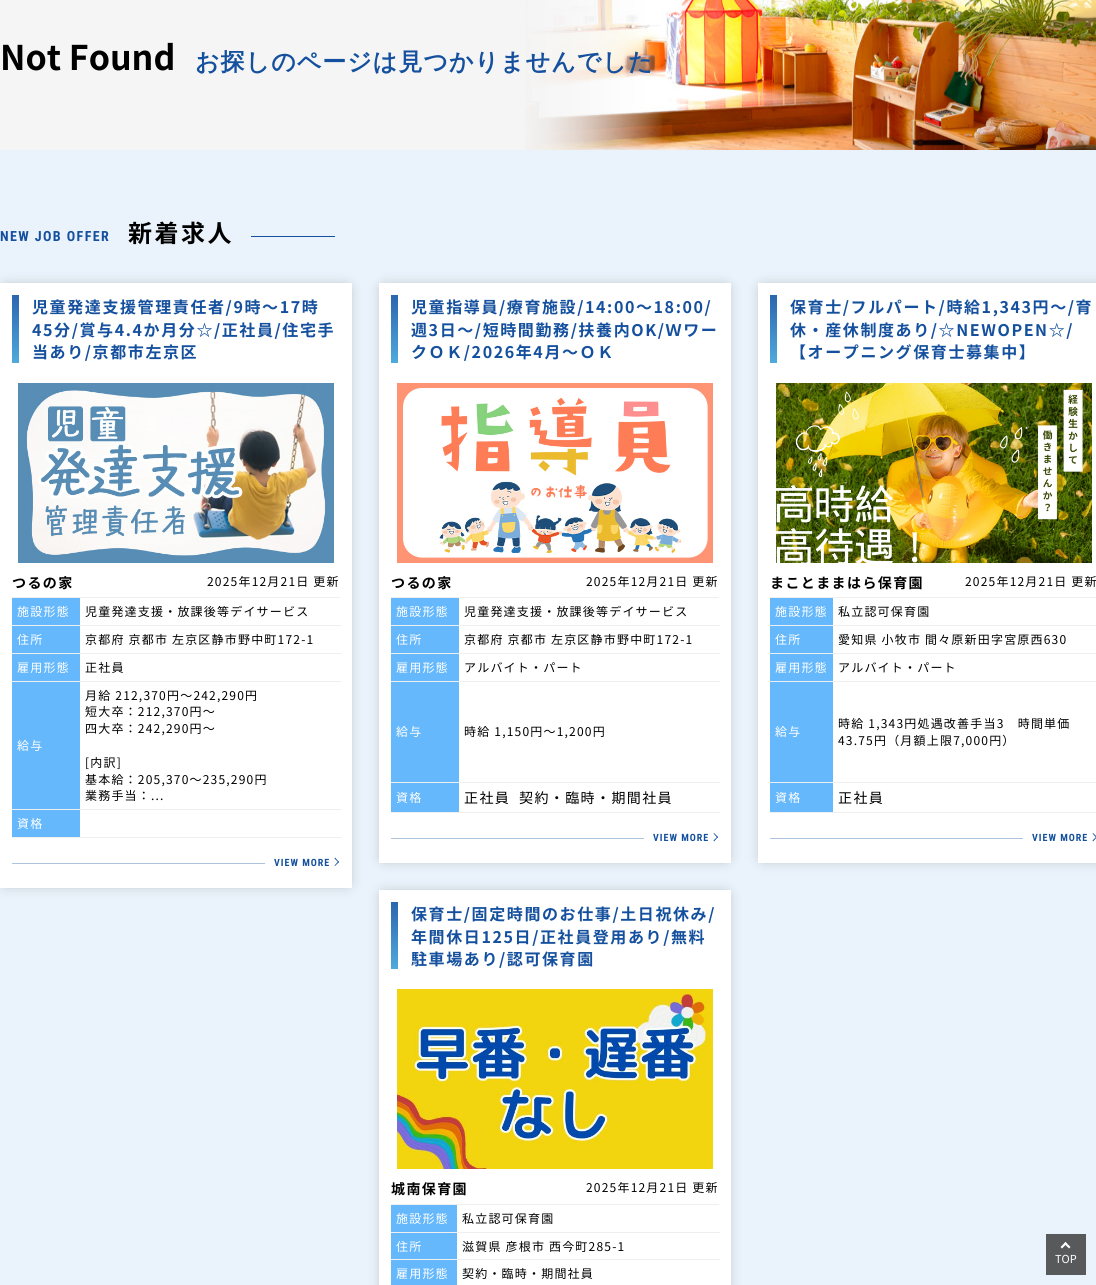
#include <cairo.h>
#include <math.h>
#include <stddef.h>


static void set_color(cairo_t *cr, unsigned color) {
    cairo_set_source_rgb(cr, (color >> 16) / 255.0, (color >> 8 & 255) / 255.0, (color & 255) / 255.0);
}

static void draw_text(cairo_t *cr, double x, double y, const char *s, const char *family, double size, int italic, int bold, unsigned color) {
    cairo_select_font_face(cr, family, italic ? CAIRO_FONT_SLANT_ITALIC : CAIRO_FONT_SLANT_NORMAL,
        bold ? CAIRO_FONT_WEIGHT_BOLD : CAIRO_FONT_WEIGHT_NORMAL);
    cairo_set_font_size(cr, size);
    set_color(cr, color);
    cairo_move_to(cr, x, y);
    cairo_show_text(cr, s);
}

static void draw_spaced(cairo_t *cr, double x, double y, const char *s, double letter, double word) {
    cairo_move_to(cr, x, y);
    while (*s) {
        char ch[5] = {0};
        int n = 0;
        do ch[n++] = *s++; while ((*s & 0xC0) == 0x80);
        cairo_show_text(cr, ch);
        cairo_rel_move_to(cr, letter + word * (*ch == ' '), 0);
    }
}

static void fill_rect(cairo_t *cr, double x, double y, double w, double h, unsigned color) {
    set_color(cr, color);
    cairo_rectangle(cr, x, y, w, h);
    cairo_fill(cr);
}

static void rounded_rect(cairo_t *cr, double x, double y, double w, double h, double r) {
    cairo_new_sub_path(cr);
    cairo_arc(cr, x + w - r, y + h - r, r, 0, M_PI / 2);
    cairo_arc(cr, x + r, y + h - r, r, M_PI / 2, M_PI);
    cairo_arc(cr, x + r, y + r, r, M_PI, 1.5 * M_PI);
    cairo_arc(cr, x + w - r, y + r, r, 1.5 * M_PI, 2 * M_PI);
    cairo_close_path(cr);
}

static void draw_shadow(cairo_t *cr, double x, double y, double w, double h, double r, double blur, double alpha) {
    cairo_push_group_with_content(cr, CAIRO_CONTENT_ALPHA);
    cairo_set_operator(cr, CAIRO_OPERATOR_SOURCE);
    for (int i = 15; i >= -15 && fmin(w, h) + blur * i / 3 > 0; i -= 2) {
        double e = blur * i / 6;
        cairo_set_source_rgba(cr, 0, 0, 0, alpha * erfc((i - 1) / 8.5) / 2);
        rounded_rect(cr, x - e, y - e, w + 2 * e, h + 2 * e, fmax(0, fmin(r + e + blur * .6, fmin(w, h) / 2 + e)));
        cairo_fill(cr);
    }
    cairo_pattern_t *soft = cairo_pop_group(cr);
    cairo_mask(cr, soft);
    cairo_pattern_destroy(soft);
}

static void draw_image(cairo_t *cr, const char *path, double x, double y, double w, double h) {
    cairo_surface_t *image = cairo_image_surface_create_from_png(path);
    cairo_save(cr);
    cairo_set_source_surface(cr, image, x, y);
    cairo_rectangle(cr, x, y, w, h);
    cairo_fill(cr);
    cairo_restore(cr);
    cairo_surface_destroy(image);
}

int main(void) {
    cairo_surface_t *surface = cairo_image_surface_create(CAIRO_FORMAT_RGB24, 1096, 1285);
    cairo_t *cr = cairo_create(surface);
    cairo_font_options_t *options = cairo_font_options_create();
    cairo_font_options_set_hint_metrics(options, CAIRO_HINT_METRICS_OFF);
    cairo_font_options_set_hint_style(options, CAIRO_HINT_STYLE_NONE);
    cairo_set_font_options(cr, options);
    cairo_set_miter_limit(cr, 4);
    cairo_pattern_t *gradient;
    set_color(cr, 0xF5F5F5);
    cairo_paint(cr);
    draw_image(cr, "assets/img1.png", 525, 0, 571, 150);
    draw_text(cr, 0, 70, "Not Found", "Noto Sans JP", 34, 0, 1, 0x000000);
    cairo_select_font_face(cr, "WenQuanYi Zen Hei", CAIRO_FONT_SLANT_NORMAL, CAIRO_FONT_WEIGHT_BOLD);
    cairo_set_font_size(cr, 24);
    set_color(cr, 0x14509E);
    draw_spaced(cr, 195, 70, "お探しのページは見つかりませんでした", 1, 0);
    fill_rect(cr, 0, 150, 1096, 1135, 0xEAF3FB);
    cairo_select_font_face(cr, "Roboto Condensed", CAIRO_FONT_SLANT_NORMAL, CAIRO_FONT_WEIGHT_BOLD);
    cairo_set_font_size(cr, 14);
    set_color(cr, 0x14509E);
    draw_spaced(cr, 0, 241, "NEW JOB OFFER", 1.4, 0);
    cairo_select_font_face(cr, "Noto Sans JP", CAIRO_FONT_SLANT_NORMAL, CAIRO_FONT_WEIGHT_BOLD);
    cairo_set_font_size(cr, 24);
    set_color(cr, 0x000000);
    draw_spaced(cr, 128, 242, "新着求人", 2.5, 0);
    fill_rect(cr, 251, 236, 84, 1, 0x14509E);
    set_color(cr, 0x000000);
    draw_shadow(cr, 5, 288, 342, 595, 0, 7.5, 0.3);
    fill_rect(cr, 0, 283, 352, 605, 0xFFFFFF);
    gradient = cairo_pattern_create_linear(15, 295, 16, 363);
    cairo_pattern_add_color_stop_rgba(gradient, 0, 0.173, 0.396, 0.69, 1);
    cairo_pattern_add_color_stop_rgba(gradient, 1, 0.314, 0.667, 0.859, 1);
    cairo_set_source(cr, gradient);
    cairo_pattern_destroy(gradient);
    cairo_rectangle(cr, 12, 295, 7, 68);
    cairo_fill(cr);
    cairo_set_font_size(cr, 16);
    set_color(cr, 0x14509E);
    draw_spaced(cr, 32, 313, "児童発達支援管理責任者/9時～17時", 1.6, 0);
    draw_spaced(cr, 32, 336, "45分/賞与4.4か月分☆/正社員/住宅手", 1.6, 0);
    draw_spaced(cr, 32, 358, "当あり/京都市左京区", 1.6, 0);
    draw_image(cr, "assets/img2.png", 18, 383, 316, 180);
    cairo_set_font_size(cr, 14);
    set_color(cr, 0x000000);
    draw_spaced(cr, 12, 588, "つるの家", 1.4, 0);
    cairo_select_font_face(cr, "Noto Sans JP", CAIRO_FONT_SLANT_NORMAL, CAIRO_FONT_WEIGHT_NORMAL);
    cairo_set_font_size(cr, 12);
    draw_spaced(cr, 207, 586, "2025年12月21日 更新", 1.2, 0);
    fill_rect(cr, 12, 597, 328, 1, 0xEFEFEF);
    fill_rect(cr, 12, 625, 329, 1, 0xEFEFEF);
    fill_rect(cr, 12, 598, 68, 27, 0x66B8FD);
    set_color(cr, 0xFFFFFF);
    draw_spaced(cr, 17, 616, "施設形態", 1.2, 0);
    set_color(cr, 0x000000);
    draw_spaced(cr, 85, 616, "児童発達支援・放課後等デイサービス", 1.2, 0);
    fill_rect(cr, 12, 653, 329, 1, 0xEFEFEF);
    fill_rect(cr, 12, 626, 68, 27, 0x66B8FD);
    set_color(cr, 0xFFFFFF);
    draw_spaced(cr, 17, 644, "住所", 1.2, 0);
    set_color(cr, 0x000000);
    draw_spaced(cr, 85, 644, "京都府 京都市 左京区静市野中町172-1", 1.2, 0);
    fill_rect(cr, 12, 681, 329, 1, 0xEFEFEF);
    fill_rect(cr, 12, 654, 68, 27, 0x66B8FD);
    set_color(cr, 0xFFFFFF);
    draw_spaced(cr, 17, 672, "雇用形態", 1.2, 0);
    set_color(cr, 0x000000);
    draw_spaced(cr, 85, 672, "正社員", 1.2, 0);
    fill_rect(cr, 12, 809, 329, 1, 0xEFEFEF);
    fill_rect(cr, 12, 682, 68, 127, 0x66B8FD);
    set_color(cr, 0xFFFFFF);
    draw_spaced(cr, 17, 750, "給与", 1.2, 0);
    set_color(cr, 0x000000);
    draw_spaced(cr, 85, 700, "月給 212,370円～242,290円", 1.2, 0);
    draw_spaced(cr, 85, 716, "短大卒：212,370円～", 1.2, 0);
    draw_spaced(cr, 85, 733, "四大卒：242,290円～", 1.2, 0);
    draw_spaced(cr, 85, 767, "[内訳]", 1.2, 0);
    draw_spaced(cr, 85, 784, "基本給：205,370～235,290円", 1.2, 0);
    draw_spaced(cr, 85, 800, "業務手当：...", 1.2, 0);
    fill_rect(cr, 12, 837, 329, 1, 0xEFEFEF);
    fill_rect(cr, 12, 810, 68, 27, 0x66B8FD);
    set_color(cr, 0xFFFFFF);
    draw_spaced(cr, 17, 828, "資格", 1.2, 0);
    fill_rect(cr, 12, 863, 253, 1, 0xAEC3DD);
    cairo_select_font_face(cr, "Roboto Condensed", CAIRO_FONT_SLANT_NORMAL, CAIRO_FONT_WEIGHT_BOLD);
    cairo_set_font_size(cr, 10);
    set_color(cr, 0x14509E);
    draw_spaced(cr, 274, 866, "VIEW MORE", 1, 0);
    cairo_new_path(cr);
    cairo_move_to(cr, 335, 857.5);
    cairo_line_to(cr, 339, 862);
    cairo_line_to(cr, 338.5, 862.5);
    cairo_line_to(cr, 334.5, 858.5);
    cairo_close_path(cr);
    cairo_fill(cr);
    cairo_new_path(cr);
    cairo_move_to(cr, 338.5, 861);
    cairo_line_to(cr, 339, 862);
    cairo_line_to(cr, 335, 866);
    cairo_line_to(cr, 334.5, 865.5);
    cairo_close_path(cr);
    cairo_fill(cr);
    set_color(cr, 0x000000);
    draw_shadow(cr, 384, 288, 342, 570, 0, 7.5, 0.3);
    fill_rect(cr, 379, 283, 352, 580, 0xFFFFFF);
    gradient = cairo_pattern_create_linear(395, 295, 395, 363);
    cairo_pattern_add_color_stop_rgba(gradient, 0, 0.173, 0.396, 0.69, 1);
    cairo_pattern_add_color_stop_rgba(gradient, 1, 0.314, 0.667, 0.859, 1);
    cairo_set_source(cr, gradient);
    cairo_pattern_destroy(gradient);
    cairo_rectangle(cr, 391, 295, 7, 68);
    cairo_fill(cr);
    cairo_select_font_face(cr, "Noto Sans JP", CAIRO_FONT_SLANT_NORMAL, CAIRO_FONT_WEIGHT_BOLD);
    cairo_set_font_size(cr, 16);
    set_color(cr, 0x14509E);
    draw_spaced(cr, 411, 313, "児童指導員/療育施設/14:00～18:00/", 1.6, 0);
    draw_spaced(cr, 411, 336, "週3日～/短時間勤務/扶養内OK/Ｗワー", 1.6, 0);
    draw_spaced(cr, 411, 358, "クＯＫ/2026年4月～ＯＫ", 1.6, 0);
    draw_image(cr, "assets/img3.png", 397, 383, 316, 180);
    cairo_set_font_size(cr, 14);
    set_color(cr, 0x000000);
    draw_spaced(cr, 391, 588, "つるの家", 1.4, 0);
    cairo_select_font_face(cr, "Noto Sans JP", CAIRO_FONT_SLANT_NORMAL, CAIRO_FONT_WEIGHT_NORMAL);
    cairo_set_font_size(cr, 12);
    draw_spaced(cr, 586, 586, "2025年12月21日 更新", 1.2, 0);
    fill_rect(cr, 391, 597, 328, 1, 0xEFEFEF);
    fill_rect(cr, 391, 625, 329, 1, 0xEFEFEF);
    fill_rect(cr, 391, 598, 68, 27, 0x66B8FD);
    set_color(cr, 0xFFFFFF);
    draw_spaced(cr, 396, 616, "施設形態", 1.2, 0);
    set_color(cr, 0x000000);
    draw_spaced(cr, 464, 616, "児童発達支援・放課後等デイサービス", 1.2, 0);
    fill_rect(cr, 391, 653, 329, 1, 0xEFEFEF);
    fill_rect(cr, 391, 626, 68, 27, 0x66B8FD);
    set_color(cr, 0xFFFFFF);
    draw_spaced(cr, 396, 644, "住所", 1.2, 0);
    set_color(cr, 0x000000);
    draw_spaced(cr, 464, 644, "京都府 京都市 左京区静市野中町172-1", 1.2, 0);
    fill_rect(cr, 391, 681, 329, 1, 0xEFEFEF);
    fill_rect(cr, 391, 654, 68, 27, 0x66B8FD);
    set_color(cr, 0xFFFFFF);
    draw_spaced(cr, 396, 672, "雇用形態", 1.2, 0);
    set_color(cr, 0x000000);
    draw_spaced(cr, 464, 672, "アルバイト・パート", 1.2, 0);
    fill_rect(cr, 391, 782, 329, 1, 0xEFEFEF);
    fill_rect(cr, 391, 682, 68, 100, 0x66B8FD);
    set_color(cr, 0xFFFFFF);
    draw_spaced(cr, 396, 736, "給与", 1.2, 0);
    set_color(cr, 0x000000);
    draw_spaced(cr, 464, 736, "時給 1,150円～1,200円", 1.2, 0);
    fill_rect(cr, 391, 812, 329, 1, 0xEFEFEF);
    fill_rect(cr, 391, 783, 68, 29, 0x66B8FD);
    set_color(cr, 0xFFFFFF);
    draw_spaced(cr, 396, 802, "資格", 1.2, 0);
    cairo_set_font_size(cr, 14);
    set_color(cr, 0x000000);
    draw_spaced(cr, 464, 803, "正社員", 1.4, 0);
    draw_spaced(cr, 519, 803, "契約・臨時・期間社員", 1.4, 0);
    fill_rect(cr, 391, 838, 253, 1, 0xAEC3DD);
    cairo_select_font_face(cr, "Roboto Condensed", CAIRO_FONT_SLANT_NORMAL, CAIRO_FONT_WEIGHT_BOLD);
    cairo_set_font_size(cr, 10);
    set_color(cr, 0x14509E);
    draw_spaced(cr, 653, 841, "VIEW MORE", 1, 0);
    cairo_new_path(cr);
    cairo_move_to(cr, 714, 833);
    cairo_line_to(cr, 718, 837);
    cairo_line_to(cr, 717.5, 838);
    cairo_line_to(cr, 713.5, 833.5);
    cairo_close_path(cr);
    cairo_fill(cr);
    cairo_new_path(cr);
    cairo_move_to(cr, 717.5, 836.5);
    cairo_line_to(cr, 718, 837);
    cairo_line_to(cr, 714, 841.5);
    cairo_line_to(cr, 713.5, 840.5);
    cairo_close_path(cr);
    cairo_fill(cr);
    set_color(cr, 0x000000);
    draw_shadow(cr, 763, 288, 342, 570, 0, 7.5, 0.3);
    fill_rect(cr, 758, 283, 338, 580, 0xFFFFFF);
    gradient = cairo_pattern_create_linear(774, 295, 774, 363);
    cairo_pattern_add_color_stop_rgba(gradient, 0, 0.173, 0.396, 0.69, 1);
    cairo_pattern_add_color_stop_rgba(gradient, 1, 0.314, 0.667, 0.859, 1);
    cairo_set_source(cr, gradient);
    cairo_pattern_destroy(gradient);
    cairo_rectangle(cr, 770, 295, 7, 68);
    cairo_fill(cr);
    cairo_select_font_face(cr, "Noto Sans JP", CAIRO_FONT_SLANT_NORMAL, CAIRO_FONT_WEIGHT_BOLD);
    cairo_set_font_size(cr, 16);
    set_color(cr, 0x14509E);
    draw_spaced(cr, 790, 313, "保育士/フルパート/時給1,343円～/育", 1.6, 0);
    draw_spaced(cr, 790, 336, "休・産休制度あり/☆NEWOPEN☆/", 1.6, 0);
    draw_spaced(cr, 790, 358, "【オープニング保育士募集中】", 1.6, 0);
    draw_image(cr, "assets/img4.png", 776, 383, 316, 180);
    cairo_set_font_size(cr, 14);
    set_color(cr, 0x000000);
    draw_spaced(cr, 770, 588, "まことままはら保育園", 1.4, 0);
    cairo_select_font_face(cr, "Noto Sans JP", CAIRO_FONT_SLANT_NORMAL, CAIRO_FONT_WEIGHT_NORMAL);
    cairo_set_font_size(cr, 12);
    draw_spaced(cr, 965, 586, "2025年12月21日 更新", 1.2, 0);
    fill_rect(cr, 770, 597, 326, 1, 0xEFEFEF);
    fill_rect(cr, 770, 625, 326, 1, 0xEFEFEF);
    fill_rect(cr, 770, 598, 63, 27, 0x66B8FD);
    set_color(cr, 0xFFFFFF);
    draw_spaced(cr, 775, 616, "施設形態", 1.2, 0);
    set_color(cr, 0x000000);
    draw_spaced(cr, 838, 616, "私立認可保育園", 1.2, 0);
    fill_rect(cr, 770, 653, 326, 1, 0xEFEFEF);
    fill_rect(cr, 770, 626, 63, 27, 0x66B8FD);
    set_color(cr, 0xFFFFFF);
    draw_spaced(cr, 775, 644, "住所", 1.2, 0);
    set_color(cr, 0x000000);
    draw_spaced(cr, 838, 644, "愛知県 小牧市 間々原新田字宮原西630", 1.2, 0);
    fill_rect(cr, 770, 681, 326, 1, 0xEFEFEF);
    fill_rect(cr, 770, 654, 63, 27, 0x66B8FD);
    set_color(cr, 0xFFFFFF);
    draw_spaced(cr, 775, 672, "雇用形態", 1.2, 0);
    set_color(cr, 0x000000);
    draw_spaced(cr, 838, 672, "アルバイト・パート", 1.2, 0);
    fill_rect(cr, 770, 782, 326, 1, 0xEFEFEF);
    fill_rect(cr, 770, 682, 63, 100, 0x66B8FD);
    set_color(cr, 0xFFFFFF);
    draw_spaced(cr, 775, 736, "給与", 1.2, 0);
    set_color(cr, 0x000000);
    draw_spaced(cr, 838, 728, "時給 1,343円処遇改善手当3　時間単価", 1.2, 0);
    draw_spaced(cr, 838, 745, "43.75円（月額上限7,000円）", 1.2, 0);
    fill_rect(cr, 770, 812, 326, 1, 0xEFEFEF);
    fill_rect(cr, 770, 783, 63, 29, 0x66B8FD);
    set_color(cr, 0xFFFFFF);
    draw_spaced(cr, 775, 802, "資格", 1.2, 0);
    cairo_set_font_size(cr, 14);
    set_color(cr, 0x000000);
    draw_spaced(cr, 838, 803, "正社員", 1.4, 0);
    fill_rect(cr, 770, 838, 253, 1, 0xAEC3DD);
    cairo_select_font_face(cr, "Roboto Condensed", CAIRO_FONT_SLANT_NORMAL, CAIRO_FONT_WEIGHT_BOLD);
    cairo_set_font_size(cr, 10);
    set_color(cr, 0x14509E);
    draw_spaced(cr, 1032, 841, "VIEW MORE", 1, 0);
    cairo_new_path(cr);
    cairo_move_to(cr, 1093, 833);
    cairo_line_to(cr, 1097, 837);
    cairo_line_to(cr, 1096.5, 838);
    cairo_line_to(cr, 1092.5, 833.5);
    cairo_close_path(cr);
    cairo_fill(cr);
    cairo_new_path(cr);
    cairo_move_to(cr, 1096.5, 836.5);
    cairo_line_to(cr, 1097, 837);
    cairo_line_to(cr, 1093, 841.5);
    cairo_line_to(cr, 1092.5, 840.5);
    cairo_close_path(cr);
    cairo_fill(cr);
    set_color(cr, 0x000000);
    draw_shadow(cr, 384, 895, 342, 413, 0, 7.5, 0.3);
    fill_rect(cr, 379, 890, 352, 395, 0xFFFFFF);
    gradient = cairo_pattern_create_linear(395, 902, 395, 969);
    cairo_pattern_add_color_stop_rgba(gradient, 0, 0.173, 0.396, 0.69, 1);
    cairo_pattern_add_color_stop_rgba(gradient, 1, 0.314, 0.667, 0.859, 1);
    cairo_set_source(cr, gradient);
    cairo_pattern_destroy(gradient);
    cairo_rectangle(cr, 391, 902, 7, 67);
    cairo_fill(cr);
    cairo_select_font_face(cr, "Noto Sans JP", CAIRO_FONT_SLANT_NORMAL, CAIRO_FONT_WEIGHT_BOLD);
    cairo_set_font_size(cr, 16);
    set_color(cr, 0x14509E);
    draw_spaced(cr, 411, 920, "保育士/固定時間のお仕事/土日祝休み/", 1.6, 0);
    draw_spaced(cr, 411, 943, "年間休日125日/正社員登用あり/無料", 1.6, 0);
    draw_spaced(cr, 411, 965, "駐車場あり/認可保育園", 1.6, 0);
    draw_image(cr, "assets/img5.png", 397, 989, 316, 180);
    cairo_set_font_size(cr, 14);
    set_color(cr, 0x000000);
    draw_spaced(cr, 391, 1194, "城南保育園", 1.4, 0);
    cairo_select_font_face(cr, "Noto Sans JP", CAIRO_FONT_SLANT_NORMAL, CAIRO_FONT_WEIGHT_NORMAL);
    cairo_set_font_size(cr, 12);
    draw_spaced(cr, 586, 1192, "2025年12月21日 更新", 1.2, 0);
    fill_rect(cr, 391, 1204, 328, 1, 0xEFEFEF);
    fill_rect(cr, 391, 1232, 329, 1, 0xEFEFEF);
    fill_rect(cr, 391, 1205, 66, 27, 0x66B8FD);
    set_color(cr, 0xFFFFFF);
    draw_spaced(cr, 396, 1223, "施設形態", 1.2, 0);
    set_color(cr, 0x000000);
    draw_spaced(cr, 462, 1223, "私立認可保育園", 1.2, 0);
    fill_rect(cr, 391, 1259, 329, 1, 0xEFEFEF);
    fill_rect(cr, 391, 1233, 66, 26, 0x66B8FD);
    set_color(cr, 0xFFFFFF);
    draw_spaced(cr, 396, 1251, "住所", 1.2, 0);
    set_color(cr, 0x000000);
    draw_spaced(cr, 462, 1251, "滋賀県 彦根市 西今町285-1", 1.2, 0);
    fill_rect(cr, 391, 1260, 66, 25, 0x66B8FD);
    set_color(cr, 0xFFFFFF);
    draw_spaced(cr, 396, 1278, "雇用形態", 1.2, 0);
    set_color(cr, 0x000000);
    draw_spaced(cr, 462, 1278, "契約・臨時・期間社員", 1.2, 0);
    fill_rect(cr, 1046, 1234, 40, 41, 0x57595A);
    set_color(cr, 0xFFFFFF);
    cairo_new_path(cr);
    cairo_move_to(cr, 1060.5, 1247);
    cairo_line_to(cr, 1065.5, 1242);
    cairo_line_to(cr, 1067, 1243.5);
    cairo_line_to(cr, 1062, 1248.5);
    cairo_close_path(cr);
    cairo_fill(cr);
    cairo_new_path(cr);
    cairo_move_to(cr, 1064, 1243.5);
    cairo_line_to(cr, 1065.5, 1242);
    cairo_line_to(cr, 1070.5, 1247);
    cairo_line_to(cr, 1069, 1248.5);
    cairo_close_path(cr);
    cairo_fill(cr);
    draw_text(cr, 1055, 1263, "TOP", "Noto Sans JP", 11, 0, 0, 0xFFFFFF);
    cairo_surface_write_to_png(surface, "output.png");
    cairo_font_options_destroy(options);
    cairo_destroy(cr);
    cairo_surface_destroy(surface);
    return 0;
}
